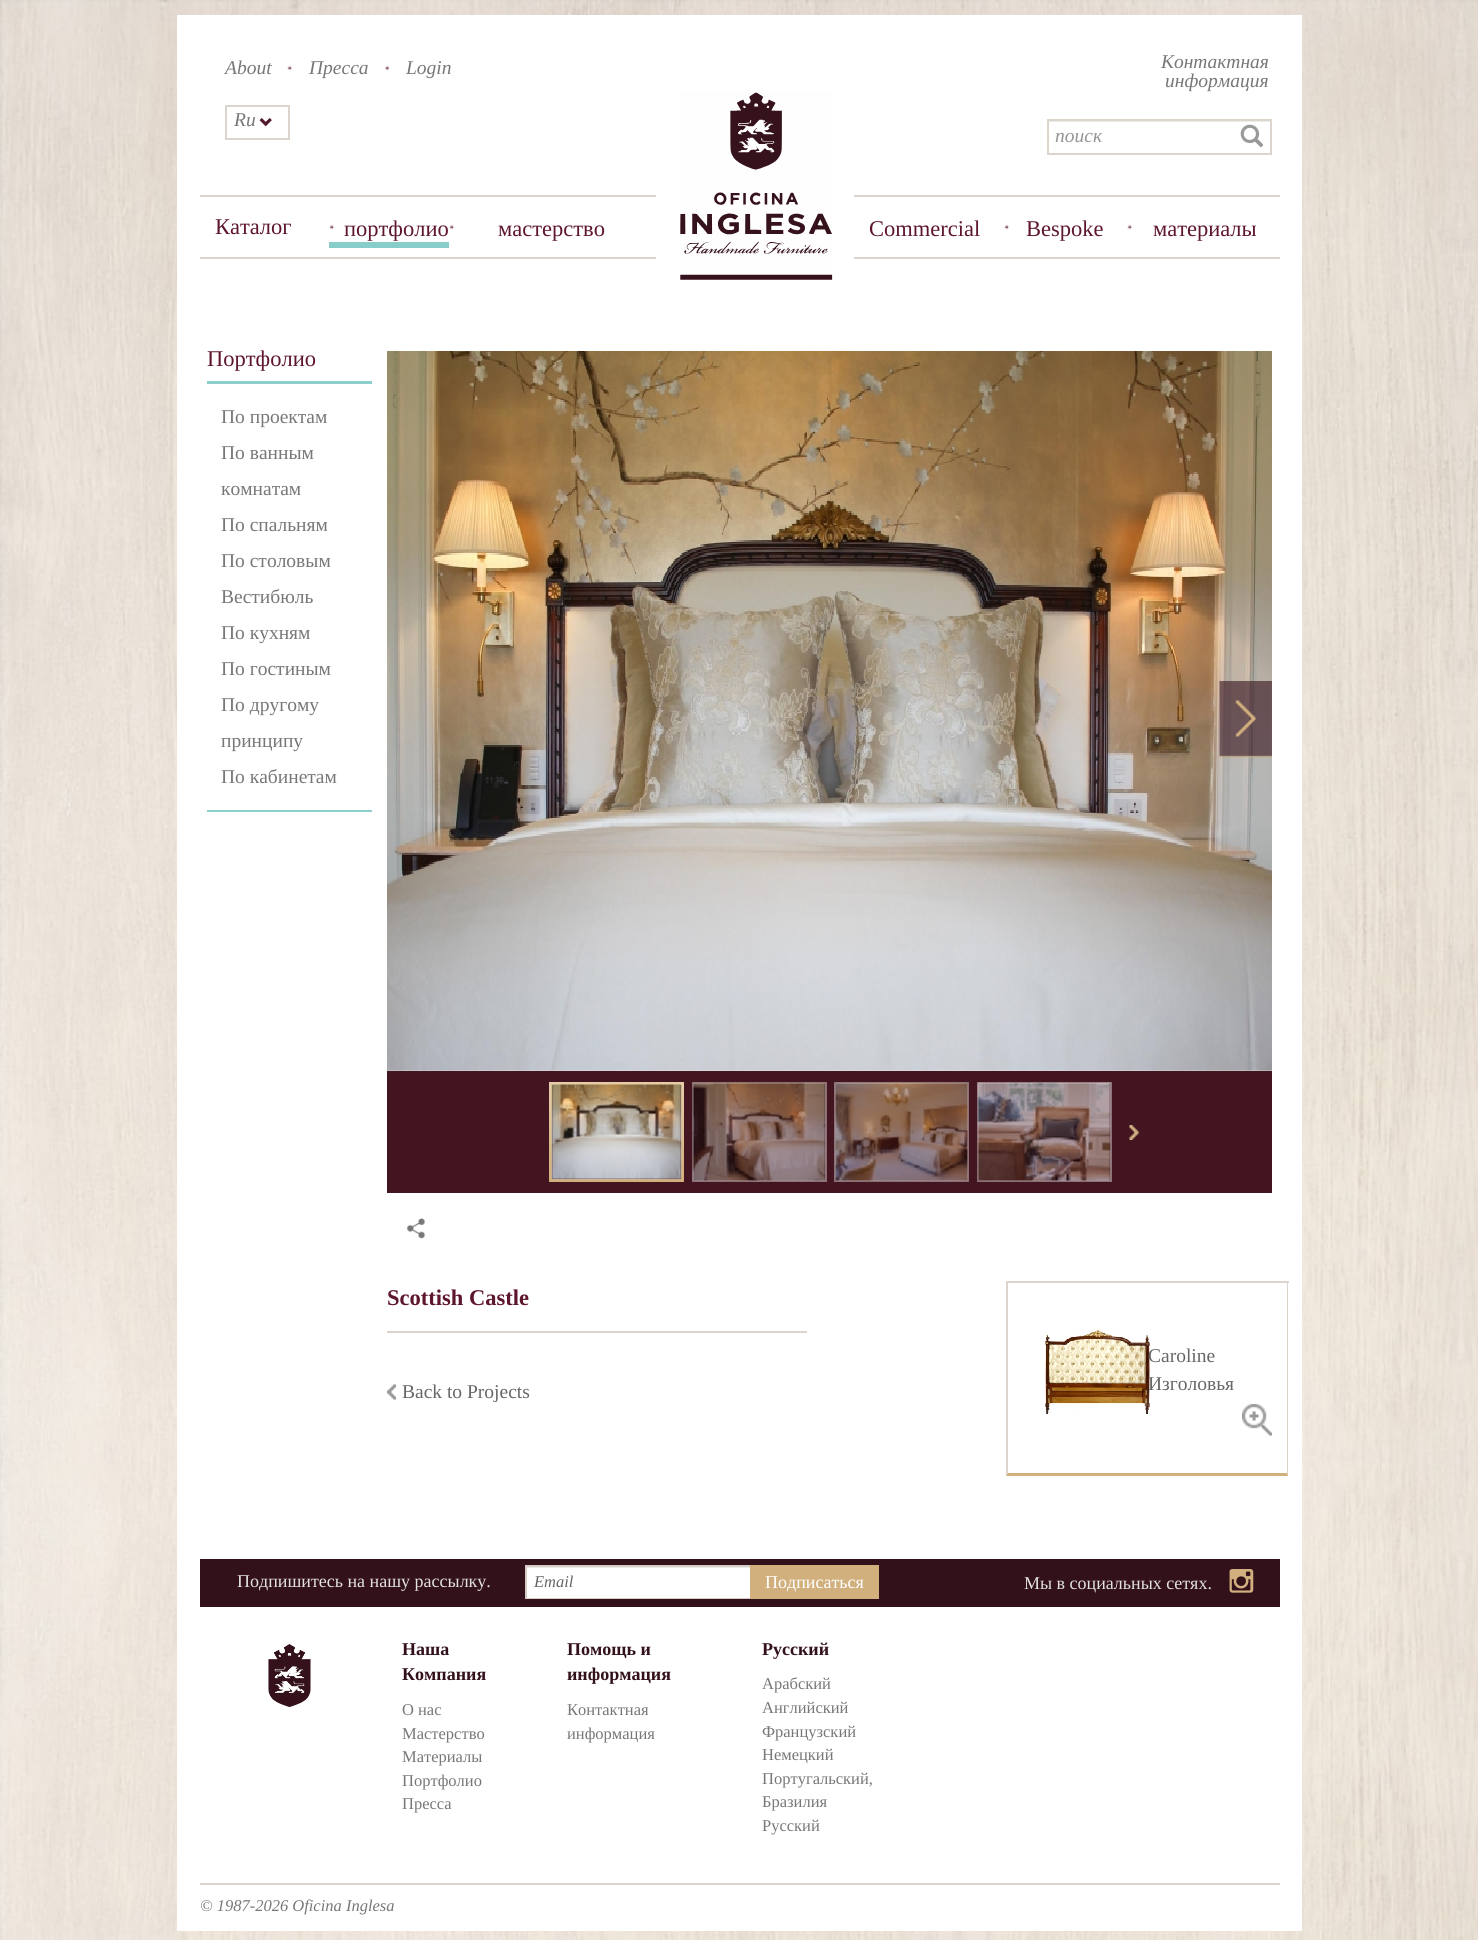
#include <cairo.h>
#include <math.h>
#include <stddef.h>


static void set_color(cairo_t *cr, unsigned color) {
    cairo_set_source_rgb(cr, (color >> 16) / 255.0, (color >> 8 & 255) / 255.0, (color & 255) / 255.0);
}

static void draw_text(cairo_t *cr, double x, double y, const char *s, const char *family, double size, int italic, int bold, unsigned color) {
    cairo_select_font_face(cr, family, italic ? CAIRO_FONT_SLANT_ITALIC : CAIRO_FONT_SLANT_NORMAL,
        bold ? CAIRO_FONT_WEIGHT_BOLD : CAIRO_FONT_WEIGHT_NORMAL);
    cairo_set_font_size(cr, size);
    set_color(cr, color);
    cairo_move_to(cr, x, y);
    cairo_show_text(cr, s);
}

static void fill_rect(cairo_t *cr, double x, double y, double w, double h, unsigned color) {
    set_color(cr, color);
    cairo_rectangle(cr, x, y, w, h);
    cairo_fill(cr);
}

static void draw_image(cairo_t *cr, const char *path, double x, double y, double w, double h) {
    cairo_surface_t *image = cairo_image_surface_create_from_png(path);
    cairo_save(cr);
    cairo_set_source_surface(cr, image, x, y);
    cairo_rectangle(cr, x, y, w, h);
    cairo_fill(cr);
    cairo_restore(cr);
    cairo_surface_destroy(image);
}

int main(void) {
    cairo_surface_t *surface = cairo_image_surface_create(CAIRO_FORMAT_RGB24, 1478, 1940);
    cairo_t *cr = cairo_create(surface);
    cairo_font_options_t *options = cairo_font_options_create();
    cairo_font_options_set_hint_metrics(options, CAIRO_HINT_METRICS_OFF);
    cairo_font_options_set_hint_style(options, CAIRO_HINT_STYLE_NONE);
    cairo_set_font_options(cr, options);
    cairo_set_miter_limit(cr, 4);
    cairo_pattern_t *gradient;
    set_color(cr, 0xFFFFFF);
    cairo_paint(cr);
    draw_image(cr, "assets/img1.png", 0, 0, 1478, 1940);
    fill_rect(cr, 177, 15, 1125, 1916, 0xFFFFFF);
    draw_text(cr, 225, 74, "About", "Liberation Serif", 19.5, 1, 0, 0x777777);
    draw_image(cr, "assets/img2.png", 287, 65, 5, 6);
    draw_text(cr, 309, 74, "Пресса", "Liberation Serif", 19.5, 1, 0, 0x777777);
    draw_image(cr, "assets/img3.png", 385, 65, 4, 6);
    draw_text(cr, 406, 74, "Login", "Liberation Serif", 19.5, 1, 0, 0x777777);
    draw_text(cr, 1161, 68, "Контактная", "Liberation Serif", 19.5, 1, 0, 0x777777);
    draw_text(cr, 1165, 87, "информация", "Liberation Serif", 19.5, 1, 0, 0x777777);
    fill_rect(cr, 1049, 121, 222, 1, 0xECECEC);
    cairo_rectangle(cr, 1048, 120, 223, 34);
    set_color(cr, 0xDCD5CD);
    cairo_stroke(cr);
    draw_text(cr, 1055, 142, "поиск", "Liberation Serif", 19.5, 1, 0, 0x949494);
    draw_image(cr, "assets/img4.png", 1240, 124, 24, 24);
    cairo_rectangle(cr, 226, 106, 63, 33);
    set_color(cr, 0xDCD5CD);
    cairo_stroke(cr);
    draw_text(cr, 234, 126, "Ru", "Liberation Serif", 19.5, 1, 0, 0x777777);
    draw_image(cr, "assets/img5.png", 259, 118, 13, 9);
    fill_rect(cr, 200, 195, 1080, 2, 0xDBD4CC);
    fill_rect(cr, 200, 257, 1080, 2, 0xDBD4CC);
    draw_text(cr, 215, 234, "Каталог", "Liberation Serif", 22.5, 0, 0, 0x5E162C);
    draw_image(cr, "assets/img6.png", 329, 224, 5, 6);
    fill_rect(cr, 329, 242, 120, 6, 0x87CECB);
    draw_text(cr, 344, 236, "портфолио", "Liberation Serif", 22.5, 0, 0, 0x5E162C);
    draw_image(cr, "assets/img6.png", 449, 224, 5, 6);
    draw_text(cr, 498, 236, "мастерство", "Liberation Serif", 22.5, 0, 0, 0x5E162C);
    fill_rect(cr, 656, 195, 198, 64, 0xFFFFFF);
    draw_image(cr, "assets/img7.png", 680, 92, 153, 188);
    draw_text(cr, 869, 236, "Commercial", "Liberation Serif", 22.5, 0, 0, 0x5E162C);
    draw_image(cr, "assets/img6.png", 1004, 224, 5, 6);
    draw_text(cr, 1026, 236, "Bespoke", "Liberation Serif", 22.5, 0, 0, 0x5E162C);
    draw_image(cr, "assets/img2.png", 1127, 224, 5, 6);
    draw_text(cr, 1153, 236, "материалы", "Liberation Serif", 22.5, 0, 0, 0x5E162C);
    fill_rect(cr, 207, 810, 165, 2, 0x8CD0CD);
    fill_rect(cr, 207, 381, 165, 3, 0x8CD0CD);
    draw_text(cr, 207, 366, "Портфолио", "Liberation Serif", 22.5, 0, 0, 0x5E162C);
    draw_text(cr, 221, 423, "По проектам", "Liberation Serif", 19.5, 0, 0, 0x777777);
    draw_text(cr, 221, 459, "По ванным", "Liberation Serif", 19.5, 0, 0, 0x777777);
    draw_text(cr, 221, 495, "комнатам", "Liberation Serif", 19.5, 0, 0, 0x777777);
    draw_text(cr, 221, 531, "По спальням", "Liberation Serif", 19.5, 0, 0, 0x777777);
    draw_text(cr, 221, 567, "По столовым", "Liberation Serif", 19.5, 0, 0, 0x777777);
    draw_text(cr, 221, 603, "Вестибюль", "Liberation Serif", 19.5, 0, 0, 0x777777);
    draw_text(cr, 221, 639, "По кухням", "Liberation Serif", 19.5, 0, 0, 0x777777);
    draw_text(cr, 221, 675, "По гостиным", "Liberation Serif", 19.5, 0, 0, 0x777777);
    draw_text(cr, 221, 711, "По другому", "Liberation Serif", 19.5, 0, 0, 0x777777);
    draw_text(cr, 221, 747, "принципу", "Liberation Serif", 19.5, 0, 0, 0x777777);
    draw_text(cr, 221, 783, "По кабинетам", "Liberation Serif", 19.5, 0, 0, 0x777777);
    fill_rect(cr, 387, 1070, 885, 1, 0xEFEAE4);
    draw_image(cr, "assets/img8.png", 387, 351, 885, 720);
    draw_image(cr, "assets/img9.png", 1219, 681, 53, 77);
    fill_rect(cr, 387, 1071, 885, 122, 0x421520);
    gradient = cairo_pattern_create_linear(683, 1085, 683, 1179);
    cairo_pattern_add_color_stop_rgba(gradient, 0, 0.902, 0.804, 0.659, 1);
    cairo_pattern_add_color_stop_rgba(gradient, 1, 0.824, 0.69, 0.494, 1);
    cairo_set_source(cr, gradient);
    cairo_pattern_destroy(gradient);
    cairo_rectangle(cr, 681, 1085, 3, 94);
    cairo_fill(cr);
    gradient = cairo_pattern_create_linear(551, 1085, 551, 1179);
    cairo_pattern_add_color_stop_rgba(gradient, 0, 0.902, 0.804, 0.659, 1);
    cairo_pattern_add_color_stop_rgba(gradient, 1, 0.824, 0.69, 0.494, 1);
    cairo_set_source(cr, gradient);
    cairo_pattern_destroy(gradient);
    cairo_rectangle(cr, 549, 1085, 3, 94);
    cairo_fill(cr);
    fill_rect(cr, 549, 1082, 135, 3, 0xE6CDA8);
    fill_rect(cr, 549, 1179, 135, 3, 0xD2B07E);
    draw_image(cr, "assets/img10.png", 551, 1084, 131, 96);
    cairo_rectangle(cr, 693, 1083, 133, 98);
    set_color(cr, 0x8C7178);
    cairo_stroke(cr);
    draw_image(cr, "assets/img11.png", 692, 1082, 134, 99);
    cairo_rectangle(cr, 835, 1083, 133, 98);
    cairo_stroke(cr);
    draw_image(cr, "assets/img12.png", 835, 1082, 133, 99);
    cairo_rectangle(cr, 978, 1083, 133, 98);
    cairo_stroke(cr);
    draw_image(cr, "assets/img13.png", 977, 1082, 134, 99);
    draw_image(cr, "assets/img14.png", 1129, 1125, 10, 15);
    draw_image(cr, "assets/img15.png", 406, 1218, 20, 21);
    fill_rect(cr, 387, 1331, 420, 2, 0xDBD4CD);
    draw_text(cr, 387, 1305, "Scottish Castle", "Liberation Serif", 22.5, 0, 1, 0x5E162C);
    fill_rect(cr, 1007, 1281, 282, 2, 0xDBD4CC);
    cairo_new_path(cr);
    cairo_move_to(cr, 1288, 1281);
    cairo_line_to(cr, 1288, 1476);
    cairo_line_to(cr, 1287, 1473);
    cairo_line_to(cr, 1287, 1282);
    cairo_close_path(cr);
    cairo_fill(cr);
    set_color(cr, 0xD2B07E);
    cairo_new_path(cr);
    cairo_move_to(cr, 1288, 1476);
    cairo_line_to(cr, 1006, 1476);
    cairo_line_to(cr, 1008, 1473);
    cairo_line_to(cr, 1287, 1473);
    cairo_close_path(cr);
    cairo_fill(cr);
    set_color(cr, 0xDBD4CC);
    cairo_new_path(cr);
    cairo_move_to(cr, 1006, 1476);
    cairo_line_to(cr, 1006, 1281);
    cairo_line_to(cr, 1008, 1282);
    cairo_line_to(cr, 1008, 1473);
    cairo_close_path(cr);
    cairo_fill(cr);
    draw_image(cr, "assets/img16.png", 1045, 1329, 105, 85);
    draw_text(cr, 1148, 1362, "Caroline", "Liberation Serif", 19.5, 0, 0, 0x666666);
    draw_text(cr, 1148, 1390, "Изголовья", "Liberation Serif", 19.5, 0, 0, 0x666666);
    draw_image(cr, "assets/img17.png", 1242, 1404, 30, 32);
    draw_image(cr, "assets/img18.png", 387, 1384, 9, 16);
    draw_text(cr, 402, 1398, "Back to Projects", "Liberation Serif", 19.5, 0, 0, 0x666666);
    fill_rect(cr, 200, 1559, 1080, 48, 0x33111A);
    draw_text(cr, 237, 1587, "Подпишитесь на нашу рассылку.", "Liberation Serif", 18, 0, 0, 0xE2E2E2);
    fill_rect(cr, 527, 1568, 223, 30, 0xFFFFFF);
    fill_rect(cr, 527, 1567, 223, 1, 0xECECEC);
    fill_rect(cr, 525, 1565, 225, 2, 0xD4CCC4);
    fill_rect(cr, 525, 1598, 225, 1, 0xD4CCC4);
    fill_rect(cr, 525, 1565, 2, 34, 0xD4CCC4);
    draw_text(cr, 534, 1587, "Email", "Liberation Serif", 16.5, 1, 0, 0x666666);
    fill_rect(cr, 750, 1565, 129, 34, 0xD2B07E);
    draw_text(cr, 765, 1588, "Подписаться", "Liberation Serif", 18, 0, 0, 0xFFFFFF);
    draw_text(cr, 1024, 1589, "Мы в социальных сетях.", "Liberation Serif", 18, 0, 0, 0xE2E2E2);
    draw_image(cr, "assets/img19.png", 1229, 1569, 25, 24);
    draw_image(cr, "assets/img20.png", 268, 1644, 43, 64);
    draw_text(cr, 402, 1655, "Наша", "Liberation Serif", 18, 0, 1, 0x33111A);
    draw_text(cr, 402, 1680, "Компания", "Liberation Serif", 18, 0, 1, 0x33111A);
    draw_text(cr, 402, 1715, "О нас", "Liberation Serif", 16.5, 0, 0, 0x777777);
    draw_text(cr, 402, 1739, "Мастерство", "Liberation Serif", 16.5, 0, 0, 0x777777);
    draw_text(cr, 402, 1762, "Материалы", "Liberation Serif", 16.5, 0, 0, 0x777777);
    draw_text(cr, 402, 1786, "Портфолио", "Liberation Serif", 16.5, 0, 0, 0x777777);
    draw_text(cr, 402, 1809, "Пресса", "Liberation Serif", 16.5, 0, 0, 0x777777);
    draw_text(cr, 567, 1655, "Помощь и", "Liberation Serif", 18, 0, 1, 0x33111A);
    draw_text(cr, 567, 1680, "информация", "Liberation Serif", 18, 0, 1, 0x33111A);
    draw_text(cr, 567, 1715, "Контактная", "Liberation Serif", 16.5, 0, 0, 0x777777);
    draw_text(cr, 567, 1739, "информация", "Liberation Serif", 16.5, 0, 0, 0x777777);
    draw_text(cr, 762, 1655, "Русский", "Liberation Serif", 18, 0, 1, 0x33111A);
    draw_text(cr, 762, 1689, "Арабский", "Liberation Serif", 16.5, 0, 0, 0x777777);
    draw_text(cr, 762, 1713, "Английский", "Liberation Serif", 16.5, 0, 0, 0x777777);
    draw_text(cr, 762, 1737, "Французский", "Liberation Serif", 16.5, 0, 0, 0x777777);
    draw_text(cr, 762, 1760, "Немецкий", "Liberation Serif", 16.5, 0, 0, 0x777777);
    draw_text(cr, 762, 1784, "Португальский,", "Liberation Serif", 16.5, 0, 0, 0x777777);
    draw_text(cr, 762, 1807, "Бразилия", "Liberation Serif", 16.5, 0, 0, 0x777777);
    draw_text(cr, 762, 1831, "Русский", "Liberation Serif", 16.5, 0, 0, 0x777777);
    fill_rect(cr, 200, 1883, 1080, 2, 0xDBD4CC);
    draw_text(cr, 200, 1911, "© 1987-2026 Oficina Inglesa", "Liberation Serif", 16.5, 1, 0, 0x777777);
    cairo_surface_write_to_png(surface, "output.png");
    cairo_font_options_destroy(options);
    cairo_destroy(cr);
    cairo_surface_destroy(surface);
    return 0;
}
